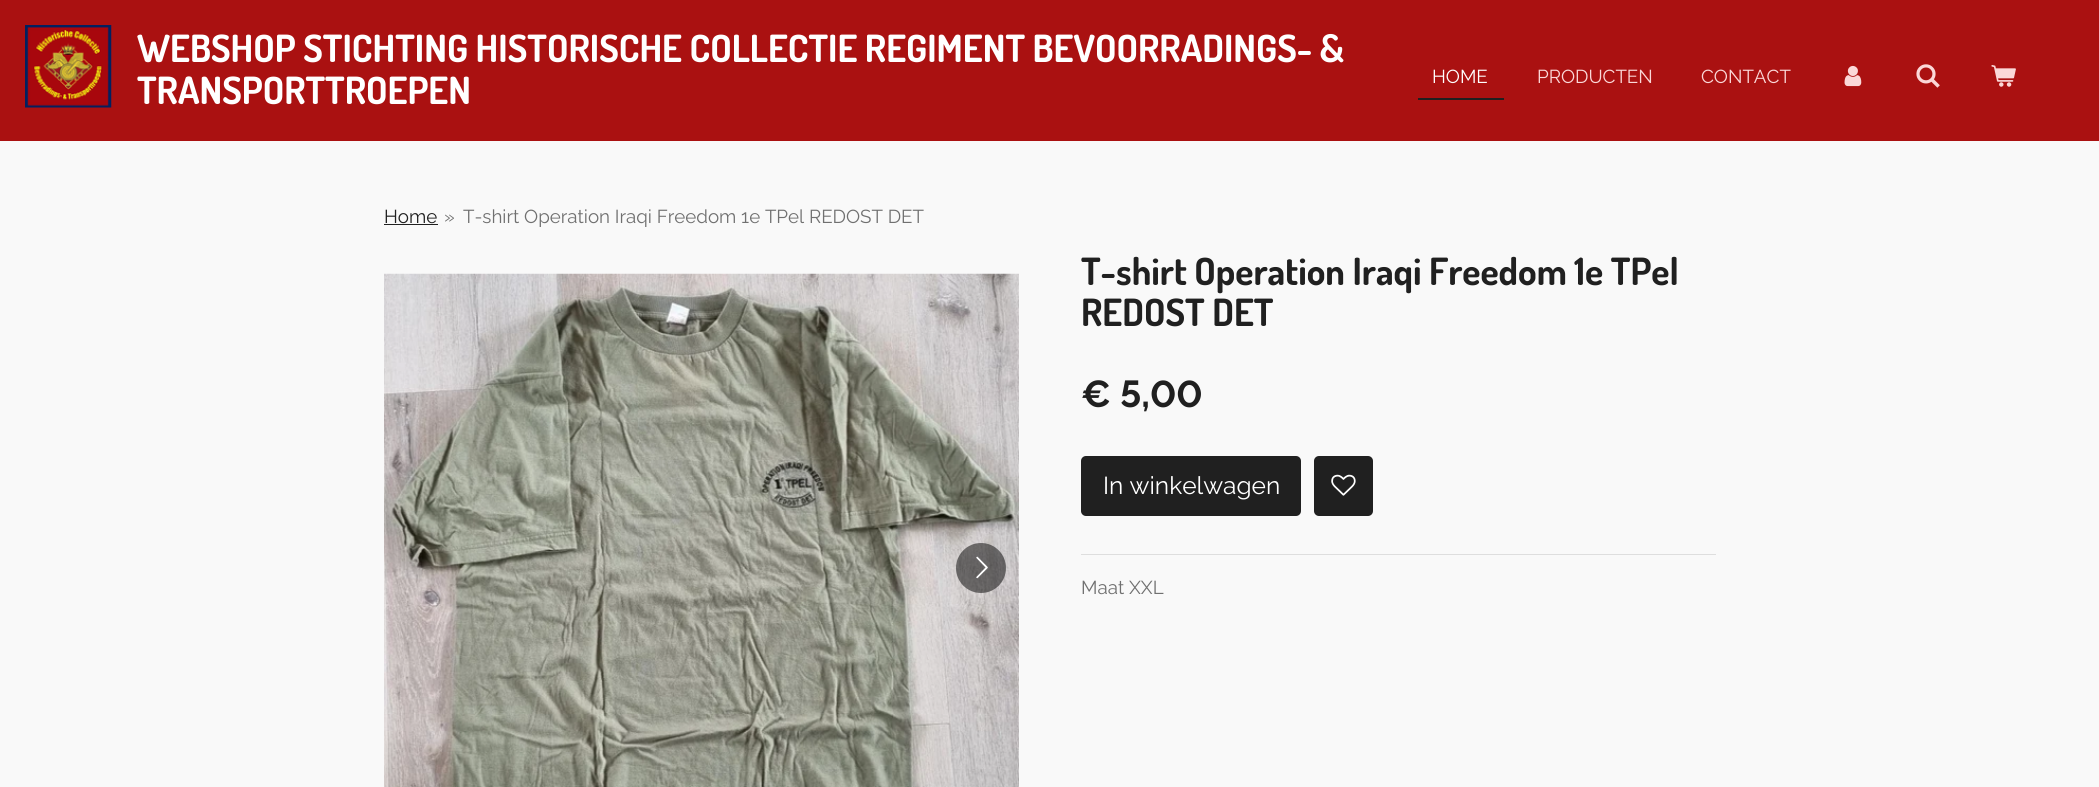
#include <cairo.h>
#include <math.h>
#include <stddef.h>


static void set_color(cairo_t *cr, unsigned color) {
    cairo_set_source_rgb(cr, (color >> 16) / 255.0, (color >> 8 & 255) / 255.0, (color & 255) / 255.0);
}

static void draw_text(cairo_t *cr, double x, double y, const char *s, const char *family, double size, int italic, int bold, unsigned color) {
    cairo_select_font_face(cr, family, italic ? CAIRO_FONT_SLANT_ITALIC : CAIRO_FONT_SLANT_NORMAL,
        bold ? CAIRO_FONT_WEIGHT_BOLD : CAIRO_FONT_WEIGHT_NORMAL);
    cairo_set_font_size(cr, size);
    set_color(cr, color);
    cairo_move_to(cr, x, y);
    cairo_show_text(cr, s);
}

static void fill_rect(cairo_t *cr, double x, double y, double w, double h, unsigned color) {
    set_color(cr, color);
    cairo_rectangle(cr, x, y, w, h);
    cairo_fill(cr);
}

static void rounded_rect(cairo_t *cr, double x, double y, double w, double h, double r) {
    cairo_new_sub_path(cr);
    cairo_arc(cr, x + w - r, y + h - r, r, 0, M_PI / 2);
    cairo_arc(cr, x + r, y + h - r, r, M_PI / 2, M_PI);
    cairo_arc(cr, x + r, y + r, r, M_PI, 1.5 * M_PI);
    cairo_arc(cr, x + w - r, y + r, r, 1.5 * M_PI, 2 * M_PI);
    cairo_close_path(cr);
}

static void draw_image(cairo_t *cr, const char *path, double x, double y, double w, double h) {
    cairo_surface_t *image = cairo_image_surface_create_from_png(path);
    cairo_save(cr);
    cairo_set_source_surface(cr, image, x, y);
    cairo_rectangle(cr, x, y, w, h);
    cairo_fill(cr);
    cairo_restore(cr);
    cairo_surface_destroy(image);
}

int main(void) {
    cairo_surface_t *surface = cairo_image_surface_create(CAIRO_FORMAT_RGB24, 2099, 787);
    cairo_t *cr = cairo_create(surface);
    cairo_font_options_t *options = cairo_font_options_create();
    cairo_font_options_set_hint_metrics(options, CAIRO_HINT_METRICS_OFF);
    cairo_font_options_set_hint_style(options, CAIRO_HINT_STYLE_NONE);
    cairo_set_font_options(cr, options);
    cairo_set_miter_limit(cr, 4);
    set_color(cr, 0xAA1111);
    cairo_paint(cr);
    draw_image(cr, "assets/img1.png", 25, 25, 87, 83);
    draw_text(cr, 137, 62, "WEBSHOP STICHTING HISTORISCHE COLLECTIE REGIMENT BEVOORRADINGS- &", "Dosis", 37.5, 0, 1, 0xFFFFFF);
    draw_text(cr, 137, 104, "TRANSPORTTROEPEN", "Dosis", 37.5, 0, 1, 0xFFFFFF);
    set_color(cr, 0x202020);
    cairo_new_path(cr);
    cairo_move_to(cr, 1418, 98);
    cairo_line_to(cr, 1418, 100);
    cairo_line_to(cr, 1504, 100);
    cairo_line_to(cr, 1504, 59);
    cairo_line_to(cr, 1504, 98);
    cairo_close_path(cr);
    cairo_fill(cr);
    draw_text(cr, 1432, 83, "HOME", "Raleway", 18.75, 0, 0, 0xFFFFFF);
    draw_text(cr, 1537, 83, "PRODUCTEN", "Raleway", 18.75, 0, 0, 0xFBD8D8);
    draw_text(cr, 1701, 83, "CONTACT", "Raleway", 18.75, 0, 0, 0xFBD8D8);
    draw_image(cr, "assets/img2.png", 1844, 65, 18, 22);
    draw_image(cr, "assets/img3.png", 1916, 64, 24, 24);
    draw_image(cr, "assets/img4.png", 1991, 65, 25, 22);
    fill_rect(cr, 0, 141, 2099, 646, 0xF9F9F9);
    draw_text(cr, 384, 223, "Home", "Raleway", 18.75, 0, 0, 0x202020);
    fill_rect(cr, 384, 224, 54, 1, 0x202020);
    draw_text(cr, 444, 223, "»", "Raleway", 18.75, 0, 0, 0x707070);
    draw_text(cr, 463, 223, "T-shirt Operation Iraqi Freedom 1e TPel REDOST DET", "Raleway", 18.75, 0, 0, 0x707070);
    draw_image(cr, "assets/img5.png", 384, 273, 635, 514);
    cairo_set_source_rgba(cr, 0, 0, 0, 0.5);
    cairo_arc(cr, 981, 568, 25, 0, 2 * M_PI);
    cairo_fill(cr);
    draw_image(cr, "assets/img6.png", 976, 556, 12, 23);
    draw_text(cr, 1081, 285, "T-shirt Operation Iraqi Freedom 1e TPel", "Dosis", 37.5, 0, 1, 0x202020);
    draw_text(cr, 1081, 326, "REDOST DET", "Dosis", 37.5, 0, 1, 0x202020);
    draw_text(cr, 1081, 407, "€ 5,00", "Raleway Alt", 37.5, 0, 1, 0x202020);
    rounded_rect(cr, 1081, 456, 220, 60, 5);
    cairo_fill(cr);
    draw_text(cr, 1103, 494, "In winkelwagen", "Raleway", 24.5, 0, 0, 0xFFFFFF);
    set_color(cr, 0x202020);
    rounded_rect(cr, 1314, 456, 59, 60, 5);
    cairo_fill(cr);
    draw_image(cr, "assets/img7.png", 1331, 474, 25, 22);
    fill_rect(cr, 1081, 554, 635, 1, 0xDEDEDE);
    draw_text(cr, 1081, 594, "Maat XXL", "Raleway", 18.75, 0, 0, 0x707070);
    cairo_surface_write_to_png(surface, "output.png");
    cairo_font_options_destroy(options);
    cairo_destroy(cr);
    cairo_surface_destroy(surface);
    return 0;
}
